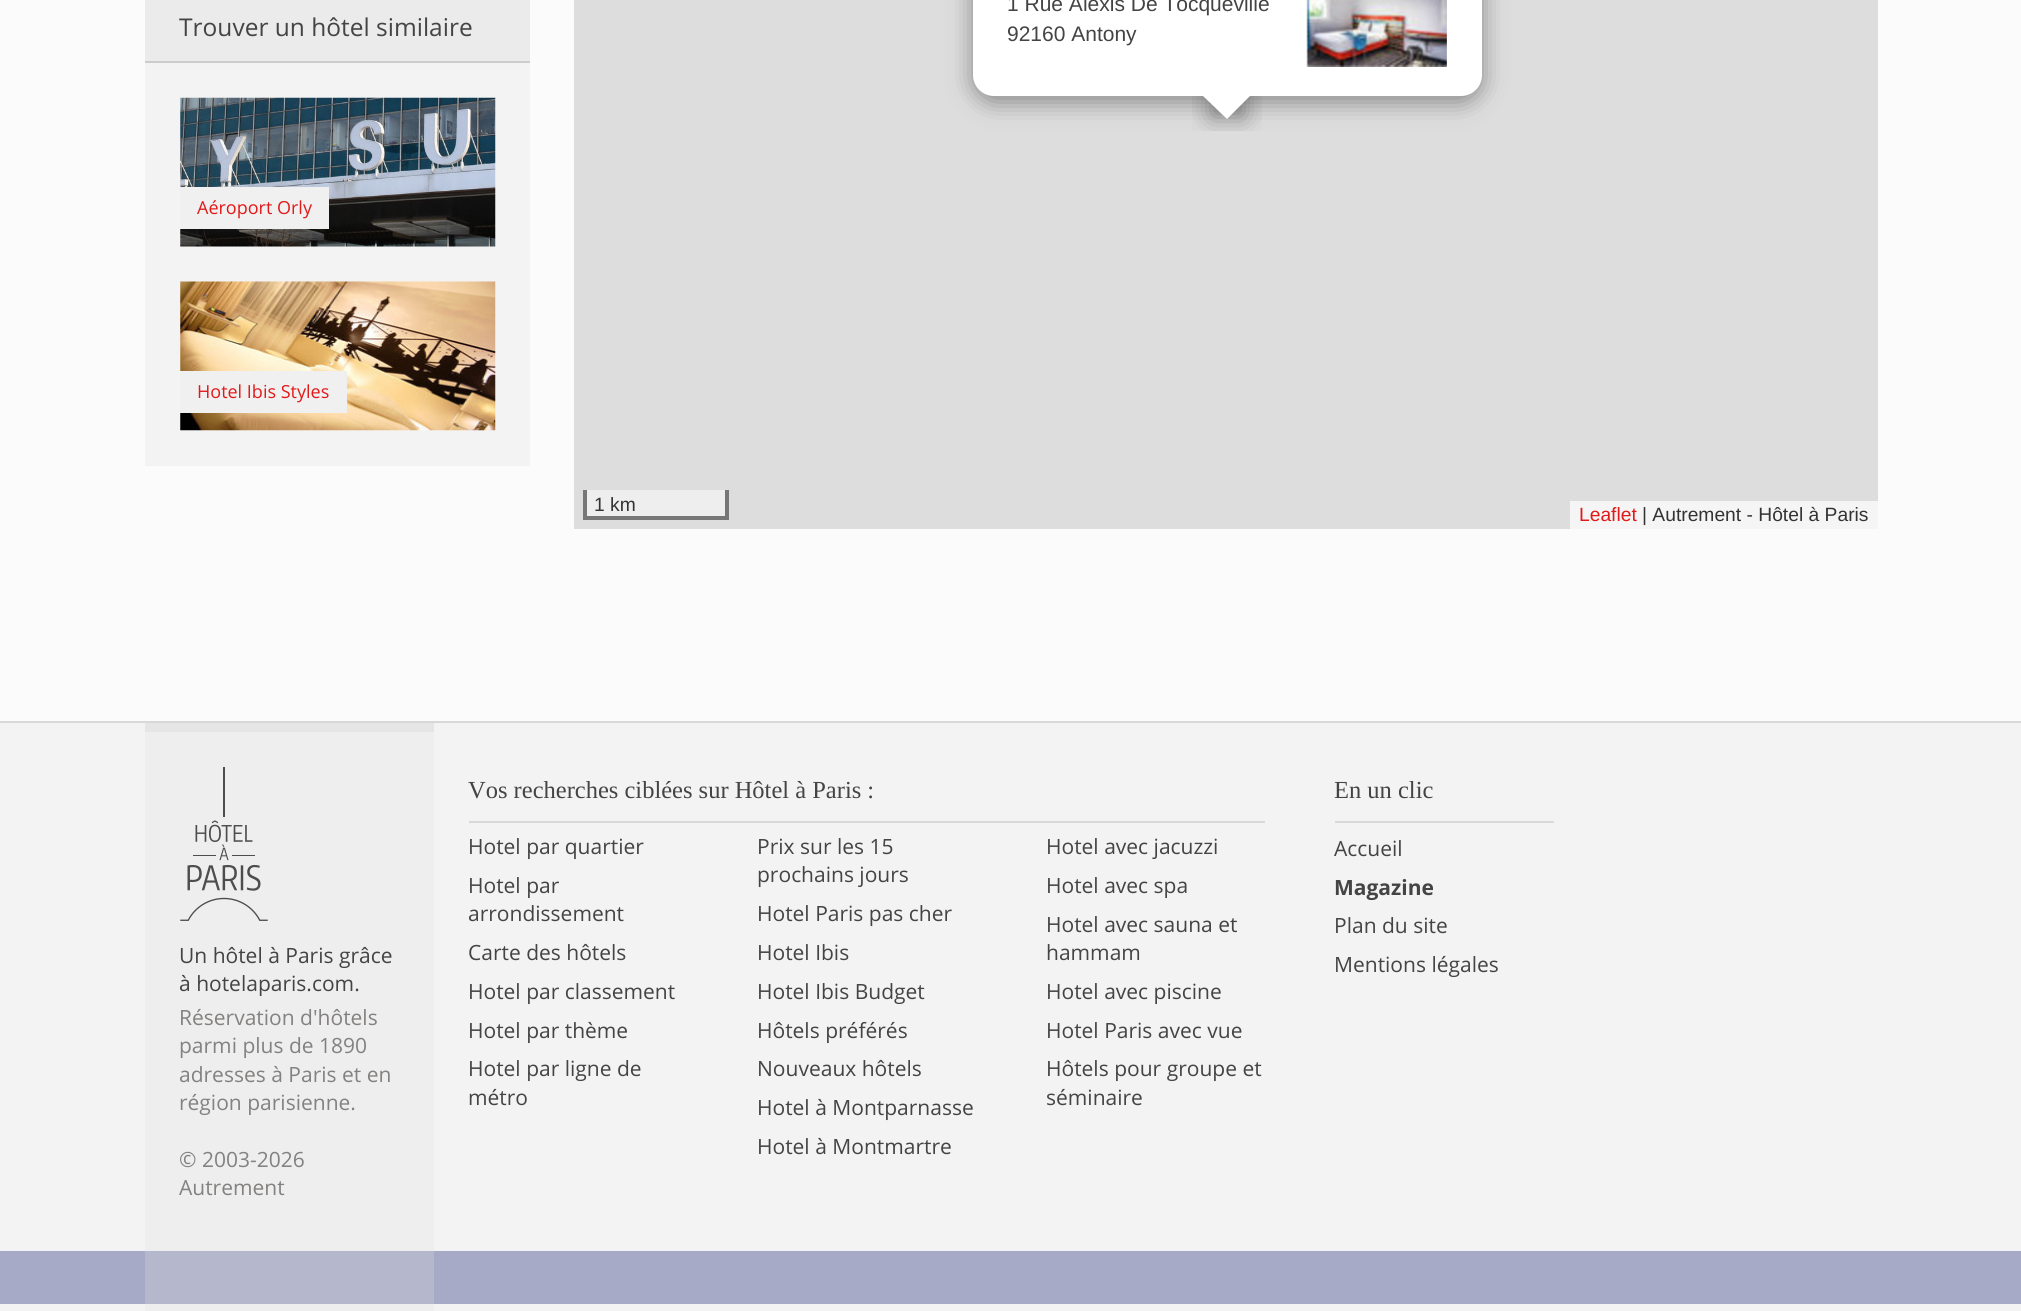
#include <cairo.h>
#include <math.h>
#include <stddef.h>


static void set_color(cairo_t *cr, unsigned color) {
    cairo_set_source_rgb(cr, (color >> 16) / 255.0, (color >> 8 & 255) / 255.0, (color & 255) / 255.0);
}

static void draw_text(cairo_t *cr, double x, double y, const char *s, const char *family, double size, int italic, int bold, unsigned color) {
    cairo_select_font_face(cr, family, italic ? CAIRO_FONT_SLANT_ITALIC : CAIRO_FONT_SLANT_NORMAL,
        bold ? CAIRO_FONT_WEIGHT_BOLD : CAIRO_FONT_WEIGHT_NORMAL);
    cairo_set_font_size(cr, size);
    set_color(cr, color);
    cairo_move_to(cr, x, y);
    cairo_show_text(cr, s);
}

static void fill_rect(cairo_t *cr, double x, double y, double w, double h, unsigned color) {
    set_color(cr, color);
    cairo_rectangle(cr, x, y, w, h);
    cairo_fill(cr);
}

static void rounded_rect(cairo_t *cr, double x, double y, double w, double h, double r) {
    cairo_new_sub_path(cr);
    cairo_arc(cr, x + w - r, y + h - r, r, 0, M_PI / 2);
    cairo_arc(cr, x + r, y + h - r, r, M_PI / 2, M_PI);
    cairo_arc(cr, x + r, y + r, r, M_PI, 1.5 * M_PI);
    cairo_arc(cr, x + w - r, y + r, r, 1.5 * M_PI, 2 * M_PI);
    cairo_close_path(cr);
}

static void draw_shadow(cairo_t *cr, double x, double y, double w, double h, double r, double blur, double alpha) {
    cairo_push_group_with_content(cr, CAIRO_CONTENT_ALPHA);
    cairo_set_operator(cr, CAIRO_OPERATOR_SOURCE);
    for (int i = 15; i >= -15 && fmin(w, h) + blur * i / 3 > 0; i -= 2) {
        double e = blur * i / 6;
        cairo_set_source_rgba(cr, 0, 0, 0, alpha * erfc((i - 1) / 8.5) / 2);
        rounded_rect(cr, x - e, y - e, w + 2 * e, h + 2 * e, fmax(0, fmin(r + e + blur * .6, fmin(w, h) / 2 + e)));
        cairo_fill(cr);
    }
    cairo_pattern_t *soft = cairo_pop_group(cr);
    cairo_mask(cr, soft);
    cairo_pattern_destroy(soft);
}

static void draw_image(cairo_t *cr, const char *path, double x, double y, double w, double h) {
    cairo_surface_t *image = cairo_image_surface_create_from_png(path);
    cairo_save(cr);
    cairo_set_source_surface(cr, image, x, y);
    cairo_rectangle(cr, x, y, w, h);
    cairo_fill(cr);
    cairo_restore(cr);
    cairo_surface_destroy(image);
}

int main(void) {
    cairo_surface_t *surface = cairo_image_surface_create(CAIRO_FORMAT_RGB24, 2021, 1311);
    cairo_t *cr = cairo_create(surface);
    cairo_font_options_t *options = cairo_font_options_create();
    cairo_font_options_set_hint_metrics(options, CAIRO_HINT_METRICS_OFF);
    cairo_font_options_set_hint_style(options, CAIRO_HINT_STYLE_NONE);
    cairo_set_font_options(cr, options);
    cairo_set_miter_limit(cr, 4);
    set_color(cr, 0xFBFBFB);
    cairo_paint(cr);
    fill_rect(cr, 145, 63, 385, 403, 0xF3F3F3);
    fill_rect(cr, 145, 0, 385, 61, 0xEBEBEB);
    fill_rect(cr, 145, 61, 385, 2, 0xCCCCCC);
    draw_text(cr, 179, 36, "Trouver un hôtel similaire", "Open Sans", 24.5, 0, 0, 0x444444);
    draw_image(cr, "assets/img1.png", 180, 97, 316, 150);
    fill_rect(cr, 180, 187, 149, 42, 0xF0F0F0);
    draw_text(cr, 197, 214, "Aéroport Orly", "Open Sans", 18, 0, 0, 0xE21919);
    draw_image(cr, "assets/img2.png", 180, 281, 316, 150);
    fill_rect(cr, 180, 371, 167, 42, 0xF0F0F0);
    draw_text(cr, 197, 398, "Hotel Ibis Styles", "Open Sans", 18, 0, 0, 0xE21919);
    fill_rect(cr, 574, 0, 1304, 529, 0xDDDDDD);
    set_color(cr, 0x000000);
    draw_shadow(cr, 973, -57, 509, 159, 21, 12, 0.4);
    set_color(cr, 0xFFFFFF);
    rounded_rect(cr, 973, -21, 509, 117, 21);
    cairo_fill(cr);
    draw_text(cr, 1007, 11, "1 Rue Alexis De Tocqueville", "Liberation Sans", 21, 0, 0, 0x444444);
    draw_image(cr, "assets/img3.png", 1306, 0, 141, 67);
    draw_text(cr, 1007, 41, "92160 Antony", "Liberation Sans", 21, 0, 0, 0x444444);
    cairo_save(cr);
    cairo_rectangle(cr, 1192, 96, 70, 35);
    cairo_clip(cr);
    set_color(cr, 0x000000);
    draw_shadow(cr, 1211, 84, 33, 33, 0, 12.5, 0.4);
    cairo_restore(cr);
    cairo_save(cr);
    cairo_rectangle(cr, 1192, 96, 70, 35);
    cairo_clip(cr);
    set_color(cr, 0xFFFFFF);
    cairo_new_path(cr);
    cairo_move_to(cr, 1227, 72);
    cairo_line_to(cr, 1250, 96);
    cairo_line_to(cr, 1227, 119);
    cairo_line_to(cr, 1203, 96);
    cairo_close_path(cr);
    cairo_fill(cr);
    cairo_restore(cr);
    fill_rect(cr, 587, 490, 138, 26, 0xEEEEEE);
    fill_rect(cr, 725, 490, 4, 30, 0x777777);
    fill_rect(cr, 583, 516, 145, 4, 0x777777);
    fill_rect(cr, 583, 490, 4, 30, 0x777777);
    draw_text(cr, 594, 511, "1 km", "Liberation Sans", 19.25, 0, 0, 0x333333);
    fill_rect(cr, 1570, 501, 308, 28, 0xF5F5F5);
    draw_text(cr, 1579, 521, "Leaflet", "Liberation Sans", 19.25, 0, 0, 0xE21919);
    draw_text(cr, 1642, 521, "| Autrement - Hôtel à Paris", "Liberation Sans", 19.25, 0, 0, 0x333333);
    fill_rect(cr, 0, 723, 2021, 588, 0xF3F3F3);
    fill_rect(cr, 145, 732, 289, 579, 0xEEEEEE);
    fill_rect(cr, 0, 721, 2021, 2, 0xD8D8D8);
    fill_rect(cr, 469, 821, 796, 2, 0xD8D8D8);
    draw_text(cr, 468, 798, "Vos recherches ciblées sur Hôtel à Paris :", "Liberation Serif", 24.5, 0, 0, 0x444444);
    draw_text(cr, 468, 854, "Hotel par quartier", "Open Sans", 21, 0, 0, 0x444444);
    draw_text(cr, 468, 893, "Hotel par", "Open Sans", 21, 0, 0, 0x444444);
    draw_text(cr, 468, 921, "arrondissement", "Open Sans", 21, 0, 0, 0x444444);
    draw_text(cr, 468, 960, "Carte des hôtels", "Open Sans", 21, 0, 0, 0x444444);
    draw_text(cr, 468, 999, "Hotel par classement", "Open Sans", 21, 0, 0, 0x444444);
    draw_text(cr, 468, 1038, "Hotel par thème", "Open Sans", 21, 0, 0, 0x444444);
    draw_text(cr, 468, 1076, "Hotel par ligne de", "Open Sans", 21, 0, 0, 0x444444);
    draw_text(cr, 468, 1105, "métro", "Open Sans", 21, 0, 0, 0x444444);
    draw_text(cr, 757, 854, "Prix sur les 15", "Open Sans", 21, 0, 0, 0x444444);
    draw_text(cr, 757, 882, "prochains jours", "Open Sans", 21, 0, 0, 0x444444);
    draw_text(cr, 757, 921, "Hotel Paris pas cher", "Open Sans", 21, 0, 0, 0x444444);
    draw_text(cr, 757, 960, "Hotel Ibis", "Open Sans", 21, 0, 0, 0x444444);
    draw_text(cr, 757, 999, "Hotel Ibis Budget", "Open Sans", 21, 0, 0, 0x444444);
    draw_text(cr, 757, 1038, "Hôtels préférés", "Open Sans", 21, 0, 0, 0x444444);
    draw_text(cr, 757, 1076, "Nouveaux hôtels", "Open Sans", 21, 0, 0, 0x444444);
    draw_text(cr, 757, 1115, "Hotel à Montparnasse", "Open Sans", 21, 0, 0, 0x444444);
    draw_text(cr, 757, 1154, "Hotel à Montmartre", "Open Sans", 21, 0, 0, 0x444444);
    draw_text(cr, 1046, 854, "Hotel avec jacuzzi", "Open Sans", 21, 0, 0, 0x444444);
    draw_text(cr, 1046, 893, "Hotel avec spa", "Open Sans", 21, 0, 0, 0x444444);
    draw_text(cr, 1046, 932, "Hotel avec sauna et", "Open Sans", 21, 0, 0, 0x444444);
    draw_text(cr, 1046, 960, "hammam", "Open Sans", 21, 0, 0, 0x444444);
    draw_text(cr, 1046, 999, "Hotel avec piscine", "Open Sans", 21, 0, 0, 0x444444);
    draw_text(cr, 1046, 1038, "Hotel Paris avec vue", "Open Sans", 21, 0, 0, 0x444444);
    draw_text(cr, 1046, 1076, "Hôtels pour groupe et", "Open Sans", 21, 0, 0, 0x444444);
    draw_text(cr, 1046, 1105, "séminaire", "Open Sans", 21, 0, 0, 0x444444);
    fill_rect(cr, 1335, 821, 219, 2, 0xD8D8D8);
    draw_text(cr, 1334, 798, "En un clic", "Liberation Serif", 24.5, 0, 0, 0x444444);
    draw_text(cr, 1334, 856, "Accueil", "Open Sans", 21, 0, 0, 0x444444);
    draw_text(cr, 1334, 895, "Magazine", "Open Sans", 21, 0, 1, 0x444444);
    draw_text(cr, 1334, 933, "Plan du site", "Open Sans", 21, 0, 0, 0x444444);
    draw_text(cr, 1334, 972, "Mentions légales", "Open Sans", 21, 0, 0, 0x444444);
    fill_rect(cr, 145, 723, 289, 9, 0xE5E5E5);
    draw_image(cr, "assets/img4.png", 180, 767, 88, 154);
    draw_text(cr, 179, 963, "Un hôtel à Paris grâce", "Open Sans", 21, 0, 0, 0x444444);
    draw_text(cr, 179, 991, "à hotelaparis.com.", "Open Sans", 21, 0, 0, 0x444444);
    draw_text(cr, 179, 1025, "Réservation d'hôtels", "Open Sans", 21, 0, 0, 0x848281);
    draw_text(cr, 179, 1053, "parmi plus de 1890", "Open Sans", 21, 0, 0, 0x848281);
    draw_text(cr, 179, 1082, "adresses à Paris et en", "Open Sans", 21, 0, 0, 0x848281);
    draw_text(cr, 179, 1110, "région parisienne.", "Open Sans", 21, 0, 0, 0x848281);
    draw_text(cr, 179, 1167, "© 2003-2026", "Open Sans", 21, 0, 0, 0x848281);
    draw_text(cr, 179, 1195, "Autrement", "Open Sans", 21, 0, 0, 0x848281);
    fill_rect(cr, 0, 1251, 2021, 53, 0xA7AAC7);
    fill_rect(cr, 145, 1251, 289, 53, 0xB5B7CD);
    cairo_surface_write_to_png(surface, "output.png");
    cairo_font_options_destroy(options);
    cairo_destroy(cr);
    cairo_surface_destroy(surface);
    return 0;
}
